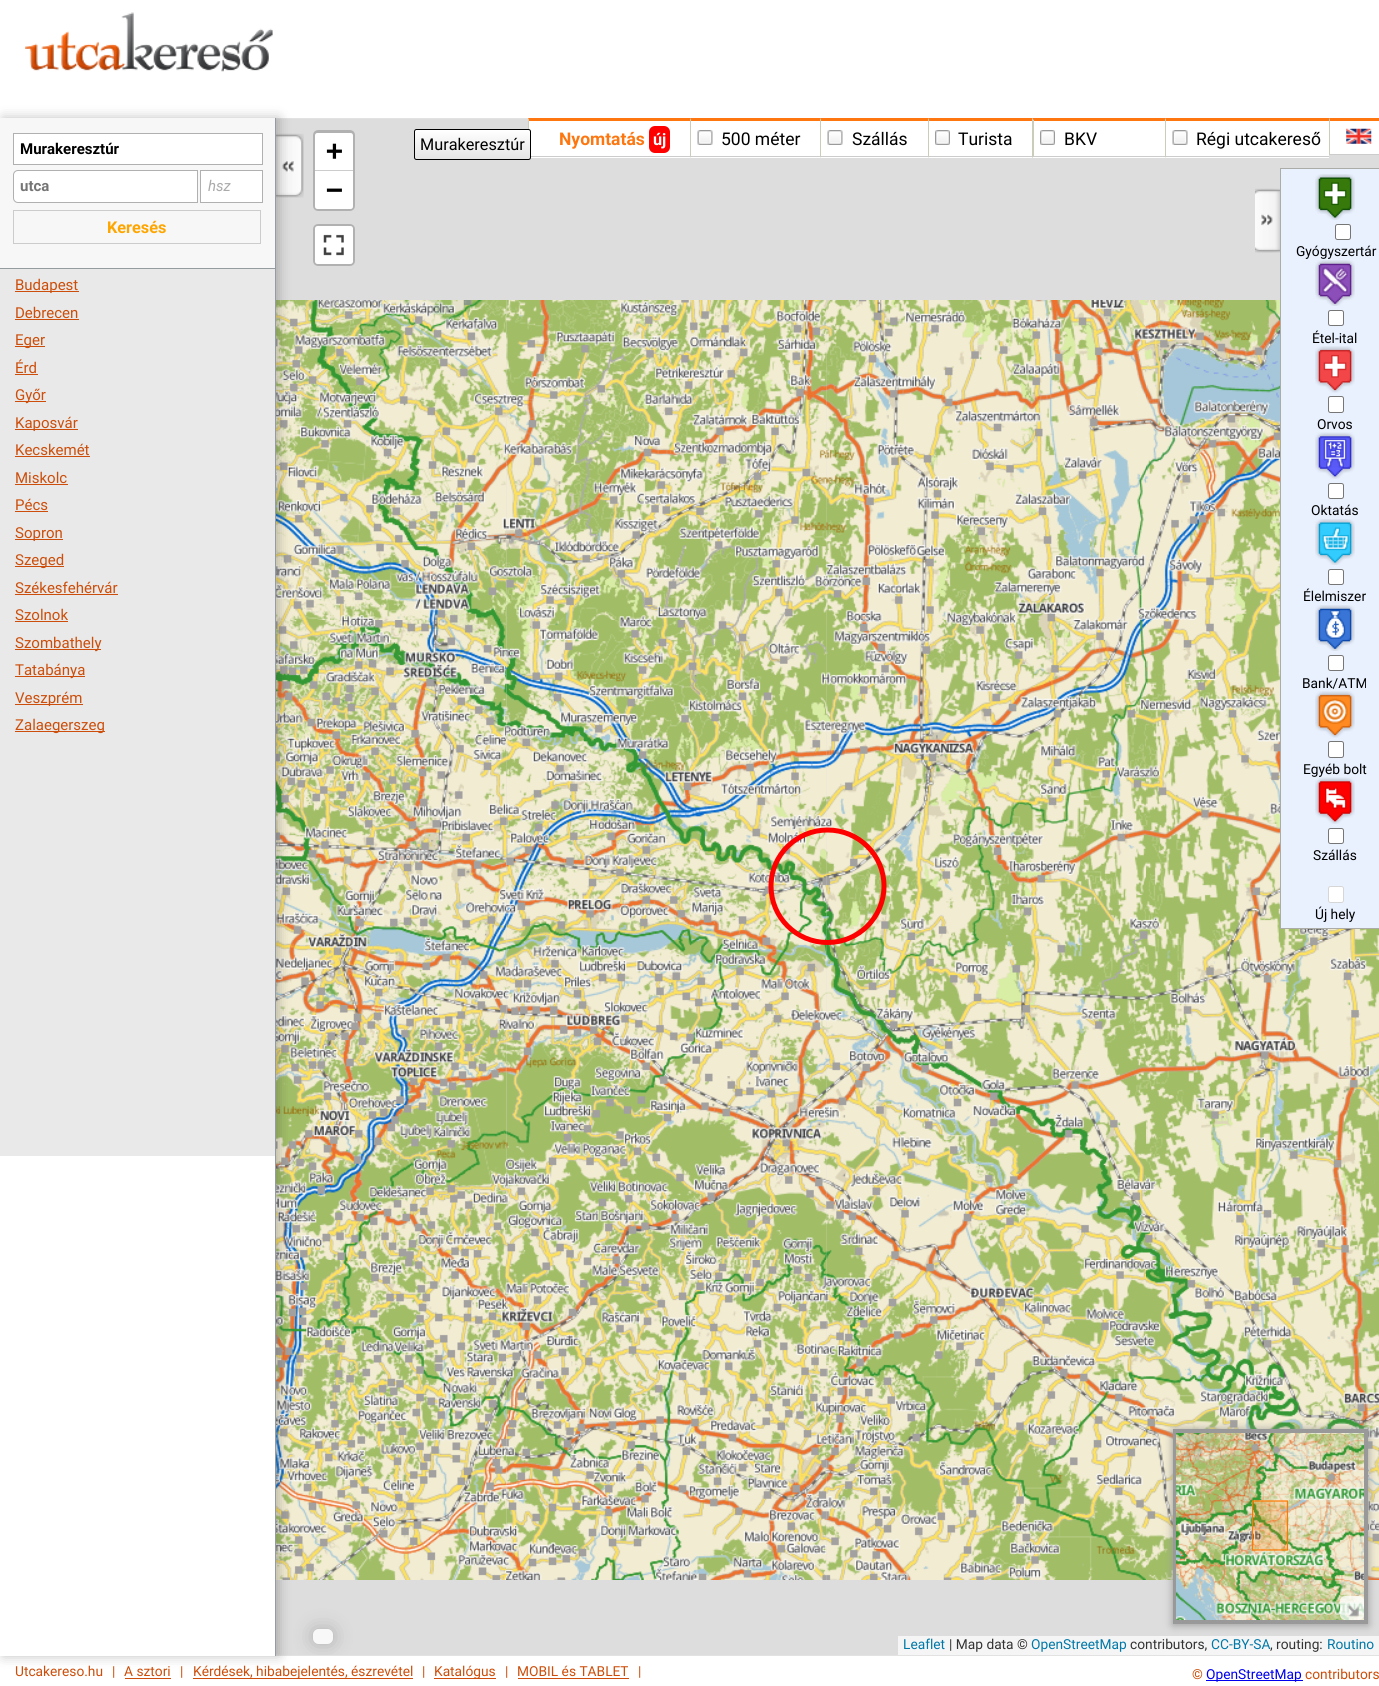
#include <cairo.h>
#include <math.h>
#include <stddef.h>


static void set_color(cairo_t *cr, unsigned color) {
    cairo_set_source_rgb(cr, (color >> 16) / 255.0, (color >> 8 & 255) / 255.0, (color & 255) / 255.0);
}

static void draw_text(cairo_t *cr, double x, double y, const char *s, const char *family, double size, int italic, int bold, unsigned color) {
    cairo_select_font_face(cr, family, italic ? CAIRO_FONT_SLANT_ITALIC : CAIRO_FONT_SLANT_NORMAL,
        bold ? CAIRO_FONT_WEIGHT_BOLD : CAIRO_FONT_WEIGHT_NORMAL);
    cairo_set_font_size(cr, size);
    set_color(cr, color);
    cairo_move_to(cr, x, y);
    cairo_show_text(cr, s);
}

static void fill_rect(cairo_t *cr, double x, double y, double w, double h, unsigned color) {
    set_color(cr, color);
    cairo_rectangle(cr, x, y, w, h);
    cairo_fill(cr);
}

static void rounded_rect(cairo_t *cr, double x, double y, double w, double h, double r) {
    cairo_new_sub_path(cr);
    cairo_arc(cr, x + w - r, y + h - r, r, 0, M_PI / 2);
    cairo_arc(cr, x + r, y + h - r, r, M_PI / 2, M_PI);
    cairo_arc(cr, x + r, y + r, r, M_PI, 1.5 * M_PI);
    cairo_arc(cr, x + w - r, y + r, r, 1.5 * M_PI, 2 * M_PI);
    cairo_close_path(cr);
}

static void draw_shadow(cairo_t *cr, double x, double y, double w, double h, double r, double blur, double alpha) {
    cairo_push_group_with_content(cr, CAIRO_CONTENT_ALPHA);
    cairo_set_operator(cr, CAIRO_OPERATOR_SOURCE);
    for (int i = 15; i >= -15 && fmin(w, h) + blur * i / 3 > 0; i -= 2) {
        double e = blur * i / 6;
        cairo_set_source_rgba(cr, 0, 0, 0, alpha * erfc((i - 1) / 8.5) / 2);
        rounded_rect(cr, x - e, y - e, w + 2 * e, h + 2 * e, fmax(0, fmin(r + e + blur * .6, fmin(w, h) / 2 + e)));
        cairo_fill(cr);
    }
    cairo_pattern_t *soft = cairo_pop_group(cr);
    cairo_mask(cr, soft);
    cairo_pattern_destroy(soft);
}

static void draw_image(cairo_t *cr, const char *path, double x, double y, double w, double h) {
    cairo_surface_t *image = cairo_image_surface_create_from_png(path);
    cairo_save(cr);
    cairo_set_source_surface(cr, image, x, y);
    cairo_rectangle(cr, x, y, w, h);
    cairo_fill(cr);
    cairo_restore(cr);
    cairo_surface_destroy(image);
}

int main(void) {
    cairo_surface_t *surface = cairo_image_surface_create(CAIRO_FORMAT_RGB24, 1379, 1686);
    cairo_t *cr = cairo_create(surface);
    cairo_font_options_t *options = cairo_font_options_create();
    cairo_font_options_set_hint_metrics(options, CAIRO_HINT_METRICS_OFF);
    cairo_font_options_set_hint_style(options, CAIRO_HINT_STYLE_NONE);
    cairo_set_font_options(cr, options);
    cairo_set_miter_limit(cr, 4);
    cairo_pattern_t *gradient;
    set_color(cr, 0xDDDDDD);
    cairo_paint(cr);
    fill_rect(cr, 0, 0, 1379, 118, 0xFFFFFF);
    fill_rect(cr, 276, 118, 252, 1, 0xE2E2E2);
    draw_image(cr, "assets/img1.png", 25, 12, 248, 60);
    draw_image(cr, "assets/img2.png", 276, 133, 28, 65);
    draw_image(cr, "assets/img9.png", 276, 300, 230, 320);
    draw_image(cr, "assets/img13.png", 276, 620, 230, 320);
    draw_image(cr, "assets/img17.png", 276, 940, 230, 320);
    draw_image(cr, "assets/img21.png", 276, 1260, 230, 320);
    cairo_save(cr);
    cairo_set_fill_rule(cr, CAIRO_FILL_RULE_EVEN_ODD);
    cairo_new_path(cr);
    cairo_move_to(cr, 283, 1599);
    cairo_line_to(cr, 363, 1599);
    cairo_line_to(cr, 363, 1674);
    cairo_line_to(cr, 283, 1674);
    cairo_close_path(cr);
    cairo_move_to(cr, 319, 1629);
    cairo_line_to(cr, 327, 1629);
    cairo_curve_to(cr, 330.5, 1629, 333, 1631.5, 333, 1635);
    cairo_line_to(cr, 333, 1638);
    cairo_curve_to(cr, 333, 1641.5, 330.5, 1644, 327, 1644);
    cairo_line_to(cr, 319, 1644);
    cairo_curve_to(cr, 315.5, 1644, 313, 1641.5, 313, 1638);
    cairo_line_to(cr, 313, 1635);
    cairo_curve_to(cr, 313, 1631.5, 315.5, 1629, 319, 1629);
    cairo_close_path(cr);
    cairo_clip(cr);
    set_color(cr, 0x000000);
    draw_shadow(cr, 313, 1629, 20, 15, 6, 9.5, 0.2);
    cairo_restore(cr);
    fill_rect(cr, 0, 1656, 1379, 30, 0xFFFFFF);
    fill_rect(cr, 276, 1655, 1103, 1, 0xE2E2E2);
    set_color(cr, 0x323232);
    draw_shadow(cr, 3, 118, 276, 1538, 0, 6, 0.3);
    fill_rect(cr, 275, 118, 1, 1538, 0x959C9F);
    fill_rect(cr, 0, 1156, 275, 500, 0xFFFFFF);
    fill_rect(cr, 0, 118, 275, 150, 0xF7F7F7);
    set_color(cr, 0xFFFFFF);
    cairo_rectangle(cr, 13.5, 133.5, 249, 31);
    cairo_fill_preserve(cr);
    set_color(cr, 0xB0B0B0);
    cairo_set_line_width(cr, 1);
    cairo_stroke(cr);
    draw_text(cr, 20, 154, "Murakeresztúr", "Roboto", 15, 0, 1, 0x000000);
    set_color(cr, 0xFFFFFF);
    cairo_new_path(cr);
    cairo_move_to(cr, 18, 170.5);
    cairo_line_to(cr, 197.5, 170.5);
    cairo_line_to(cr, 197.5, 202.5);
    cairo_line_to(cr, 18, 202.5);
    cairo_curve_to(cr, 15.5, 202.5, 13.5, 200.5, 13.5, 198);
    cairo_line_to(cr, 13.5, 175);
    cairo_curve_to(cr, 13.5, 172.5, 15.5, 170.5, 18, 170.5);
    cairo_close_path(cr);
    cairo_fill_preserve(cr);
    set_color(cr, 0xB0B0B0);
    cairo_stroke(cr);
    draw_text(cr, 20, 191, "utca", "Roboto", 15, 0, 1, 0x757575);
    set_color(cr, 0xFFFFFF);
    cairo_rectangle(cr, 200.5, 170.5, 62, 32);
    cairo_fill_preserve(cr);
    set_color(cr, 0xB0B0B0);
    cairo_stroke(cr);
    draw_text(cr, 208, 191, "hsz", "Roboto", 15, 1, 0, 0xAAAAAA);
    cairo_rectangle(cr, 13.5, 210.5, 247, 33);
    set_color(cr, 0xCCCCCC);
    cairo_stroke(cr);
    draw_text(cr, 107, 233, "Keresés", "Roboto", 16.25, 0, 1, 0xFFA500);
    fill_rect(cr, 0, 269, 275, 887, 0xE9E9E9);
    fill_rect(cr, 0, 268, 275, 1, 0x959C9F);
    fill_rect(cr, 15, 291, 64, 1, 0xCC4E0A);
    draw_text(cr, 15, 290, "Budapest", "Roboto", 15, 0, 0, 0xCC4E0A);
    draw_text(cr, 15, 318, "Debrecen", "Roboto", 15, 0, 0, 0xCC4E0A);
    fill_rect(cr, 15, 319, 64, 1, 0xCC4E0A);
    fill_rect(cr, 15, 346, 30, 1, 0xCC4E0A);
    draw_text(cr, 15, 345, "Eger", "Roboto", 15, 0, 0, 0xCC4E0A);
    draw_text(cr, 15, 373, "Érd", "Roboto", 15, 0, 0, 0xCC4E0A);
    fill_rect(cr, 15, 374, 23, 1, 0xCC4E0A);
    fill_rect(cr, 15, 401, 31, 1, 0xCC4E0A);
    draw_text(cr, 15, 400, "Győr", "Roboto", 15, 0, 0, 0xCC4E0A);
    fill_rect(cr, 15, 429, 63, 1, 0xCC4E0A);
    draw_text(cr, 15, 428, "Kaposvár", "Roboto", 15, 0, 0, 0xCC4E0A);
    draw_text(cr, 15, 455, "Kecskemét", "Roboto", 15, 0, 0, 0xCC4E0A);
    fill_rect(cr, 15, 456, 75, 1, 0xCC4E0A);
    draw_text(cr, 15, 483, "Miskolc", "Roboto", 15, 0, 0, 0xCC4E0A);
    fill_rect(cr, 15, 484, 53, 1, 0xCC4E0A);
    draw_text(cr, 15, 510, "Pécs", "Roboto", 15, 0, 0, 0xCC4E0A);
    fill_rect(cr, 15, 511, 33, 1, 0xCC4E0A);
    fill_rect(cr, 15, 539, 48, 1, 0xCC4E0A);
    draw_text(cr, 15, 538, "Sopron", "Roboto", 15, 0, 0, 0xCC4E0A);
    fill_rect(cr, 15, 566, 49, 1, 0xCC4E0A);
    draw_text(cr, 15, 565, "Szeged", "Roboto", 15, 0, 0, 0xCC4E0A);
    draw_text(cr, 15, 593, "Székesfehérvár", "Roboto", 15, 0, 0, 0xCC4E0A);
    fill_rect(cr, 15, 594, 103, 1, 0xCC4E0A);
    draw_text(cr, 15, 620, "Szolnok", "Roboto", 15, 0, 0, 0xCC4E0A);
    fill_rect(cr, 15, 621, 53, 1, 0xCC4E0A);
    fill_rect(cr, 15, 649, 86, 1, 0xCC4E0A);
    draw_text(cr, 15, 648, "Szombathely", "Roboto", 15, 0, 0, 0xCC4E0A);
    fill_rect(cr, 15, 676, 70, 1, 0xCC4E0A);
    draw_text(cr, 15, 675, "Tatabánya", "Roboto", 15, 0, 0, 0xCC4E0A);
    fill_rect(cr, 15, 704, 68, 1, 0xCC4E0A);
    draw_text(cr, 15, 703, "Veszprém", "Roboto", 15, 0, 0, 0xCC4E0A);
    fill_rect(cr, 15, 731, 90, 1, 0xCC4E0A);
    draw_text(cr, 15, 730, "Zalaegerszeg", "Roboto", 15, 0, 0, 0xCC4E0A);
    fill_rect(cr, 528, 118, 505, 40, 0xFFFFFF);
    fill_rect(cr, 528, 156, 505, 1, 0xCCCCCC);
    set_color(cr, 0xFD760F);
    cairo_new_path(cr);
    cairo_move_to(cr, 528, 118);
    cairo_line_to(cr, 690, 118);
    cairo_line_to(cr, 690, 121);
    cairo_line_to(cr, 529, 121);
    cairo_close_path(cr);
    cairo_fill(cr);
    set_color(cr, 0xCCCCBB);
    cairo_new_path(cr);
    cairo_move_to(cr, 528, 158);
    cairo_line_to(cr, 528, 118);
    cairo_line_to(cr, 529, 121);
    cairo_line_to(cr, 529, 156);
    cairo_close_path(cr);
    cairo_fill(cr);
    cairo_save(cr);
    rounded_rect(cr, 414, 129, 117, 31, 2.5);
    cairo_clip(cr);
    gradient = cairo_pattern_create_linear(473, 130, 473, 159);
    cairo_pattern_add_color_stop_rgba(gradient, 0, 1, 1, 1, 1);
    cairo_pattern_add_color_stop_rgba(gradient, 1, 0.898, 0.898, 0.898, 1);
    cairo_set_source(cr, gradient);
    cairo_pattern_destroy(gradient);
    cairo_rectangle(cr, 414, 130, 117, 29);
    cairo_fill(cr);
    cairo_restore(cr);
    rounded_rect(cr, 414.5, 129.5, 116, 30, 2);
    set_color(cr, 0x000000);
    cairo_stroke(cr);
    draw_text(cr, 420, 150, "Murakeresztúr", "Roboto", 16.25, 0, 0, 0x000000);
    draw_text(cr, 559, 145, "Nyomtatás", "Roboto", 17.5, 0, 1, 0xFD760F);
    set_color(cr, 0xFF0000);
    rounded_rect(cr, 649, 126, 21, 27, 6);
    cairo_fill(cr);
    draw_text(cr, 653, 145, "új", "Roboto", 16.25, 0, 1, 0xFFFFFF);
    set_color(cr, 0xFD760F);
    cairo_new_path(cr);
    cairo_move_to(cr, 690, 118);
    cairo_line_to(cr, 820, 118);
    cairo_line_to(cr, 820, 121);
    cairo_line_to(cr, 691, 121);
    cairo_close_path(cr);
    cairo_fill(cr);
    set_color(cr, 0xCCCCBB);
    cairo_new_path(cr);
    cairo_move_to(cr, 690, 158);
    cairo_line_to(cr, 690, 118);
    cairo_line_to(cr, 691, 121);
    cairo_line_to(cr, 691, 156);
    cairo_close_path(cr);
    cairo_fill(cr);
    draw_image(cr, "assets/img3.png", 697, 130, 16, 15);
    draw_text(cr, 721, 145, "500 méter", "Roboto", 17.5, 0, 0, 0x000000);
    set_color(cr, 0xFD760F);
    cairo_new_path(cr);
    cairo_move_to(cr, 820, 118);
    cairo_line_to(cr, 928, 118);
    cairo_line_to(cr, 928, 121);
    cairo_line_to(cr, 821, 121);
    cairo_close_path(cr);
    cairo_fill(cr);
    set_color(cr, 0xCCCCBB);
    cairo_new_path(cr);
    cairo_move_to(cr, 820, 158);
    cairo_line_to(cr, 820, 118);
    cairo_line_to(cr, 821, 121);
    cairo_line_to(cr, 821, 156);
    cairo_close_path(cr);
    cairo_fill(cr);
    draw_image(cr, "assets/img3.png", 827, 130, 16, 15);
    draw_text(cr, 852, 145, "Szállás", "Roboto", 17.5, 0, 0, 0x000000);
    set_color(cr, 0xFD760F);
    cairo_new_path(cr);
    cairo_move_to(cr, 928, 118);
    cairo_line_to(cr, 1032, 118);
    cairo_line_to(cr, 1032, 121);
    cairo_line_to(cr, 929, 121);
    cairo_close_path(cr);
    cairo_fill(cr);
    set_color(cr, 0xCCCCBB);
    cairo_new_path(cr);
    cairo_move_to(cr, 928, 158);
    cairo_line_to(cr, 928, 118);
    cairo_line_to(cr, 929, 121);
    cairo_line_to(cr, 929, 156);
    cairo_close_path(cr);
    cairo_fill(cr);
    draw_image(cr, "assets/img4.png", 935, 130, 15, 15);
    draw_text(cr, 958, 145, "Turista", "Roboto", 17.5, 0, 0, 0x000000);
    fill_rect(cr, 1033, 119, 132, 39, 0xFFFFFF);
    set_color(cr, 0xFD760F);
    cairo_new_path(cr);
    cairo_move_to(cr, 1032, 118);
    cairo_line_to(cr, 1165, 118);
    cairo_line_to(cr, 1165, 121);
    cairo_line_to(cr, 1034, 121);
    cairo_close_path(cr);
    cairo_fill(cr);
    fill_rect(cr, 1033, 156, 132, 1, 0xCCCCCC);
    set_color(cr, 0xCCCCBB);
    cairo_new_path(cr);
    cairo_move_to(cr, 1032, 158);
    cairo_line_to(cr, 1032, 118);
    cairo_line_to(cr, 1034, 121);
    cairo_line_to(cr, 1034, 156);
    cairo_close_path(cr);
    cairo_fill(cr);
    draw_image(cr, "assets/img4.png", 1040, 130, 15, 15);
    draw_text(cr, 1064, 145, "BKV", "Roboto", 17.5, 0, 0, 0x000000);
    fill_rect(cr, 1165, 118, 164, 40, 0xFFFFFF);
    set_color(cr, 0xFD760F);
    cairo_new_path(cr);
    cairo_move_to(cr, 1165, 118);
    cairo_line_to(cr, 1329, 118);
    cairo_line_to(cr, 1329, 121);
    cairo_line_to(cr, 1166, 121);
    cairo_close_path(cr);
    cairo_fill(cr);
    fill_rect(cr, 1165, 156, 164, 1, 0xCCCCCC);
    set_color(cr, 0xCCCCBB);
    cairo_new_path(cr);
    cairo_move_to(cr, 1165, 158);
    cairo_line_to(cr, 1165, 118);
    cairo_line_to(cr, 1166, 121);
    cairo_line_to(cr, 1166, 156);
    cairo_close_path(cr);
    cairo_fill(cr);
    draw_image(cr, "assets/img3.png", 1172, 130, 16, 15);
    draw_text(cr, 1196, 145, "Régi utcakereső", "Roboto", 17.5, 0, 0, 0x000000);
    fill_rect(cr, 1329, 118, 50, 36, 0xFFFFFF);
    set_color(cr, 0xFD760F);
    cairo_new_path(cr);
    cairo_move_to(cr, 1329, 118);
    cairo_line_to(cr, 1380, 118);
    cairo_line_to(cr, 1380, 121);
    cairo_line_to(cr, 1330, 121);
    cairo_close_path(cr);
    cairo_fill(cr);
    fill_rect(cr, 1329, 154, 50, 1, 0xCCCCCC);
    set_color(cr, 0xCCCCBB);
    cairo_new_path(cr);
    cairo_move_to(cr, 1329, 155);
    cairo_line_to(cr, 1329, 117.5);
    cairo_line_to(cr, 1330, 121);
    cairo_line_to(cr, 1330, 154);
    cairo_close_path(cr);
    cairo_fill(cr);
    draw_image(cr, "assets/img5.png", 1346, 128, 26, 16);
    rounded_rect(cr, 314.5, 131.5, 39, 78, 3.5);
    set_color(cr, 0xB1B1B1);
    cairo_set_line_width(cr, 3);
    cairo_stroke(cr);
    set_color(cr, 0xFFFFFF);
    cairo_new_path(cr);
    cairo_move_to(cr, 317.5, 133);
    cairo_line_to(cr, 350.5, 133);
    cairo_curve_to(cr, 352, 133, 353, 134, 353, 135.5);
    cairo_line_to(cr, 353, 171);
    cairo_line_to(cr, 315, 171);
    cairo_line_to(cr, 315, 135.5);
    cairo_curve_to(cr, 315, 134, 316, 133, 317.5, 133);
    cairo_close_path(cr);
    cairo_fill(cr);
    fill_rect(cr, 315, 170, 38, 1, 0xCCCCCC);
    draw_text(cr, 326, 160, "+", "DejaVu Sans Mono", 28, 0, 1, 0x000000);
    set_color(cr, 0xFFFFFF);
    cairo_new_path(cr);
    cairo_move_to(cr, 315, 171);
    cairo_line_to(cr, 353, 171);
    cairo_line_to(cr, 353, 206.5);
    cairo_curve_to(cr, 353, 208, 352, 209, 350.5, 209);
    cairo_line_to(cr, 317.5, 209);
    cairo_curve_to(cr, 316, 209, 315, 208, 315, 206.5);
    cairo_close_path(cr);
    cairo_fill(cr);
    draw_text(cr, 326, 199, "−", "DejaVu Sans Mono", 28, 0, 1, 0x000000);
    rounded_rect(cr, 314.5, 225.5, 39, 39, 3.5);
    set_color(cr, 0xB1B1B1);
    cairo_stroke(cr);
    set_color(cr, 0xFFFFFF);
    rounded_rect(cr, 315, 226, 38, 38, 2.5);
    cairo_fill(cr);
    draw_image(cr, "assets/img6.png", 323, 234, 21, 22);
    cairo_set_source_rgba(cr, 1, 1, 1, 0.8);
    rounded_rect(cr, 313, 1629, 20, 15, 6);
    cairo_fill(cr);
    draw_image(cr, "assets/img24.png", 1146, 1260, 233, 320);
    set_color(cr, 0x999999);
    draw_shadow(cr, 1173, 1430, 195, 195, 0, 4.5, 1);
    cairo_rectangle(cr, 1175, 1431, 191, 191);
    set_color(cr, 0x999999);
    cairo_set_line_width(cr, 4);
    cairo_stroke(cr);
    draw_image(cr, "assets/img7.png", 1176, 1433, 188, 187);
    cairo_set_source_rgba(cr, 1, 0.471, 0, 0.2);
    cairo_rectangle(cr, 1253, 1501, 34, 49);
    cairo_fill(cr);
    cairo_new_path(cr);
    cairo_move_to(cr, 1252.5, 1550);
    cairo_line_to(cr, 1252.5, 1501);
    cairo_line_to(cr, 1287.5, 1501);
    cairo_line_to(cr, 1287.5, 1550);
    cairo_close_path(cr);
    set_color(cr, 0xFF7800);
    cairo_set_line_width(cr, 1.2);
    cairo_set_line_cap(cr, CAIRO_LINE_CAP_ROUND);
    cairo_set_line_join(cr, CAIRO_LINE_JOIN_ROUND);
    cairo_stroke(cr);
    cairo_set_source_rgba(cr, 1, 1, 1, 0.75);
    rounded_rect(cr, 1340, 1596, 24, 24, 5);
    cairo_fill(cr);
    draw_image(cr, "assets/img8.png", 1347, 1605, 12, 12);
    fill_rect(cr, 898, 1636, 481, 19, 0xF5F5F5);
    draw_text(cr, 903, 1649, "Leaflet", "Roboto", 13.75, 0, 0, 0x0078A8);
    draw_text(cr, 949, 1649, "| Map data ©", "Roboto", 13.75, 0, 0, 0x333333);
    draw_text(cr, 1031, 1649, "OpenStreetMap", "Roboto", 13.75, 0, 0, 0x0078A8);
    draw_text(cr, 1130, 1649, "contributors,", "Roboto", 13.75, 0, 0, 0x333333);
    draw_text(cr, 1211, 1649, "CC-BY-SA", "Roboto", 13.75, 0, 0, 0x0078A8);
    draw_text(cr, 1270, 1649, ", routing:", "Roboto", 13.75, 0, 0, 0x333333);
    draw_text(cr, 1327, 1649, "Routino", "Roboto", 13.75, 0, 0, 0x0078A8);
    draw_image(cr, "assets/img10.png", 506, 300, 321, 320);
    draw_image(cr, "assets/img11.png", 826, 300, 320, 320);
    draw_image(cr, "assets/img12.png", 1146, 300, 134, 320);
    draw_image(cr, "assets/img14.png", 506, 620, 321, 320);
    draw_image(cr, "assets/img15.png", 826, 620, 320, 320);
    draw_image(cr, "assets/img16.png", 1146, 620, 233, 320);
    draw_image(cr, "assets/img18.png", 506, 940, 321, 320);
    draw_image(cr, "assets/img19.png", 826, 940, 320, 320);
    draw_image(cr, "assets/img20.png", 1146, 940, 233, 320);
    draw_image(cr, "assets/img22.png", 506, 1260, 321, 320);
    draw_image(cr, "assets/img23.png", 826, 1260, 320, 320);
    cairo_new_path(cr);
    cairo_move_to(cr, 771, 886);
    cairo_curve_to(cr, 771, 917.5, 796.5, 942.5, 827.5, 942.5);
    cairo_curve_to(cr, 858.5, 942.5, 884, 917.5, 884, 886);
    cairo_curve_to(cr, 884, 855, 858.5, 830, 827.5, 830);
    cairo_curve_to(cr, 796.5, 830, 771, 855, 771, 886);
    set_color(cr, 0xFF0000);
    cairo_set_line_width(cr, 5);
    cairo_stroke(cr);
    set_color(cr, 0xE9F1FF);
    cairo_rectangle(cr, 1280.5, 168.5, 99, 760);
    cairo_fill_preserve(cr);
    set_color(cr, 0xABABA7);
    cairo_set_line_width(cr, 1);
    cairo_set_line_cap(cr, CAIRO_LINE_CAP_BUTT);
    cairo_set_line_join(cr, CAIRO_LINE_JOIN_MITER);
    cairo_stroke(cr);
    draw_image(cr, "assets/img25.png", 1255, 188, 25, 65);
    draw_image(cr, "assets/img26.png", 1315, 174, 40, 46);
    set_color(cr, 0xFFFFFF);
    rounded_rect(cr, 1335.5, 224.5, 15, 15, 2);
    cairo_fill_preserve(cr);
    set_color(cr, 0x767676);
    cairo_stroke(cr);
    draw_text(cr, 1296, 256, "Gyógyszertár", "Roboto", 13.75, 0, 0, 0x000000);
    draw_image(cr, "assets/img27.png", 1315, 260, 40, 46);
    set_color(cr, 0xFFFFFF);
    rounded_rect(cr, 1328.5, 310.5, 15, 15, 2);
    cairo_fill_preserve(cr);
    set_color(cr, 0x767676);
    cairo_stroke(cr);
    draw_text(cr, 1312, 343, "Étel-ital", "Roboto", 13.75, 0, 0, 0x000000);
    draw_image(cr, "assets/img28.png", 1315, 346, 40, 47);
    set_color(cr, 0xFFFFFF);
    rounded_rect(cr, 1328.5, 396.5, 15, 16, 2);
    cairo_fill_preserve(cr);
    set_color(cr, 0x767676);
    cairo_stroke(cr);
    draw_text(cr, 1317, 429, "Orvos", "Roboto", 13.75, 0, 0, 0x000000);
    draw_image(cr, "assets/img29.png", 1315, 432, 40, 47);
    set_color(cr, 0xFFFFFF);
    rounded_rect(cr, 1328.5, 483.5, 15, 15, 2);
    cairo_fill_preserve(cr);
    set_color(cr, 0x767676);
    cairo_stroke(cr);
    draw_text(cr, 1311, 515, "Oktatás", "Roboto", 13.75, 0, 0, 0x000000);
    draw_image(cr, "assets/img30.png", 1315, 519, 40, 46);
    set_color(cr, 0xFFFFFF);
    rounded_rect(cr, 1328.5, 569.5, 15, 15, 2);
    cairo_fill_preserve(cr);
    set_color(cr, 0x767676);
    cairo_stroke(cr);
    draw_text(cr, 1303, 601, "Élelmiszer", "Roboto", 13.75, 0, 0, 0x000000);
    draw_image(cr, "assets/img31.png", 1315, 605, 40, 46);
    set_color(cr, 0xFFFFFF);
    rounded_rect(cr, 1328.5, 655.5, 15, 15, 2);
    cairo_fill_preserve(cr);
    set_color(cr, 0x767676);
    cairo_stroke(cr);
    draw_text(cr, 1302, 688, "Bank/ATM", "Roboto", 13.75, 0, 0, 0x000000);
    draw_image(cr, "assets/img32.png", 1315, 691, 40, 47);
    set_color(cr, 0xFFFFFF);
    rounded_rect(cr, 1328.5, 741.5, 15, 16, 2);
    cairo_fill_preserve(cr);
    set_color(cr, 0x767676);
    cairo_stroke(cr);
    draw_text(cr, 1303, 774, "Egyéb bolt", "Roboto", 13.75, 0, 0, 0x000000);
    draw_image(cr, "assets/img33.png", 1315, 777, 40, 47);
    set_color(cr, 0xFFFFFF);
    rounded_rect(cr, 1328.5, 828.5, 15, 15, 2);
    cairo_fill_preserve(cr);
    set_color(cr, 0x767676);
    cairo_stroke(cr);
    draw_text(cr, 1313, 860, "Szállás", "Roboto", 13.75, 0, 0, 0x000000);
    set_color(cr, 0xFFFFFF);
    rounded_rect(cr, 1328, 886, 16, 17, 2.5);
    cairo_fill(cr);
    rounded_rect(cr, 1328.5, 886.5, 15, 16, 2);
    cairo_set_source_rgba(cr, 0.463, 0.463, 0.463, 0.3);
    cairo_stroke(cr);
    draw_text(cr, 1315, 919, "Új hely", "Roboto", 13.75, 0, 0, 0x000000);
    draw_text(cr, 15, 1676, "Utcakereso.hu", "Roboto", 13.75, 0, 0, 0xCC4E0A);
    draw_text(cr, 112, 1676, "|", "Roboto", 13.75, 0, 0, 0xCC4E0A);
    draw_text(cr, 124, 1676, "A sztori", "Roboto", 13.75, 0, 0, 0xCC4E0A);
    fill_rect(cr, 125, 1678, 46, 1, 0xCC4E0A);
    draw_text(cr, 180, 1676, "|", "Roboto", 13.75, 0, 0, 0xCC4E0A);
    fill_rect(cr, 193, 1678, 220, 1, 0xCC4E0A);
    draw_text(cr, 193, 1676, "Kérdések, hibabejelentés, észrevétel", "Roboto", 13.75, 0, 0, 0xCC4E0A);
    draw_text(cr, 422, 1676, "|", "Roboto", 13.75, 0, 0, 0xCC4E0A);
    fill_rect(cr, 434, 1678, 62, 1, 0xCC4E0A);
    draw_text(cr, 434, 1676, "Katalógus", "Roboto", 13.75, 0, 0, 0xCC4E0A);
    draw_text(cr, 505, 1676, "|", "Roboto", 13.75, 0, 0, 0xCC4E0A);
    draw_text(cr, 517, 1676, "MOBIL és TABLET", "Roboto", 13.75, 0, 0, 0xCC4E0A);
    fill_rect(cr, 518, 1678, 111, 1, 0xCC4E0A);
    draw_text(cr, 638, 1676, "|", "Roboto", 13.75, 0, 0, 0xCC4E0A);
    draw_text(cr, 1192, 1679, "©", "Roboto", 13.75, 0, 0, 0xCC4E0A);
    fill_rect(cr, 1206, 1680, 97, 1, 0x0000EE);
    draw_text(cr, 1206, 1679, "OpenStreetMap", "Roboto", 13.75, 0, 0, 0x0000EE);
    draw_text(cr, 1305, 1679, "contributors", "Roboto", 13.75, 0, 0, 0xCC4E0A);
    cairo_surface_write_to_png(surface, "output.png");
    cairo_font_options_destroy(options);
    cairo_destroy(cr);
    cairo_surface_destroy(surface);
    return 0;
}
